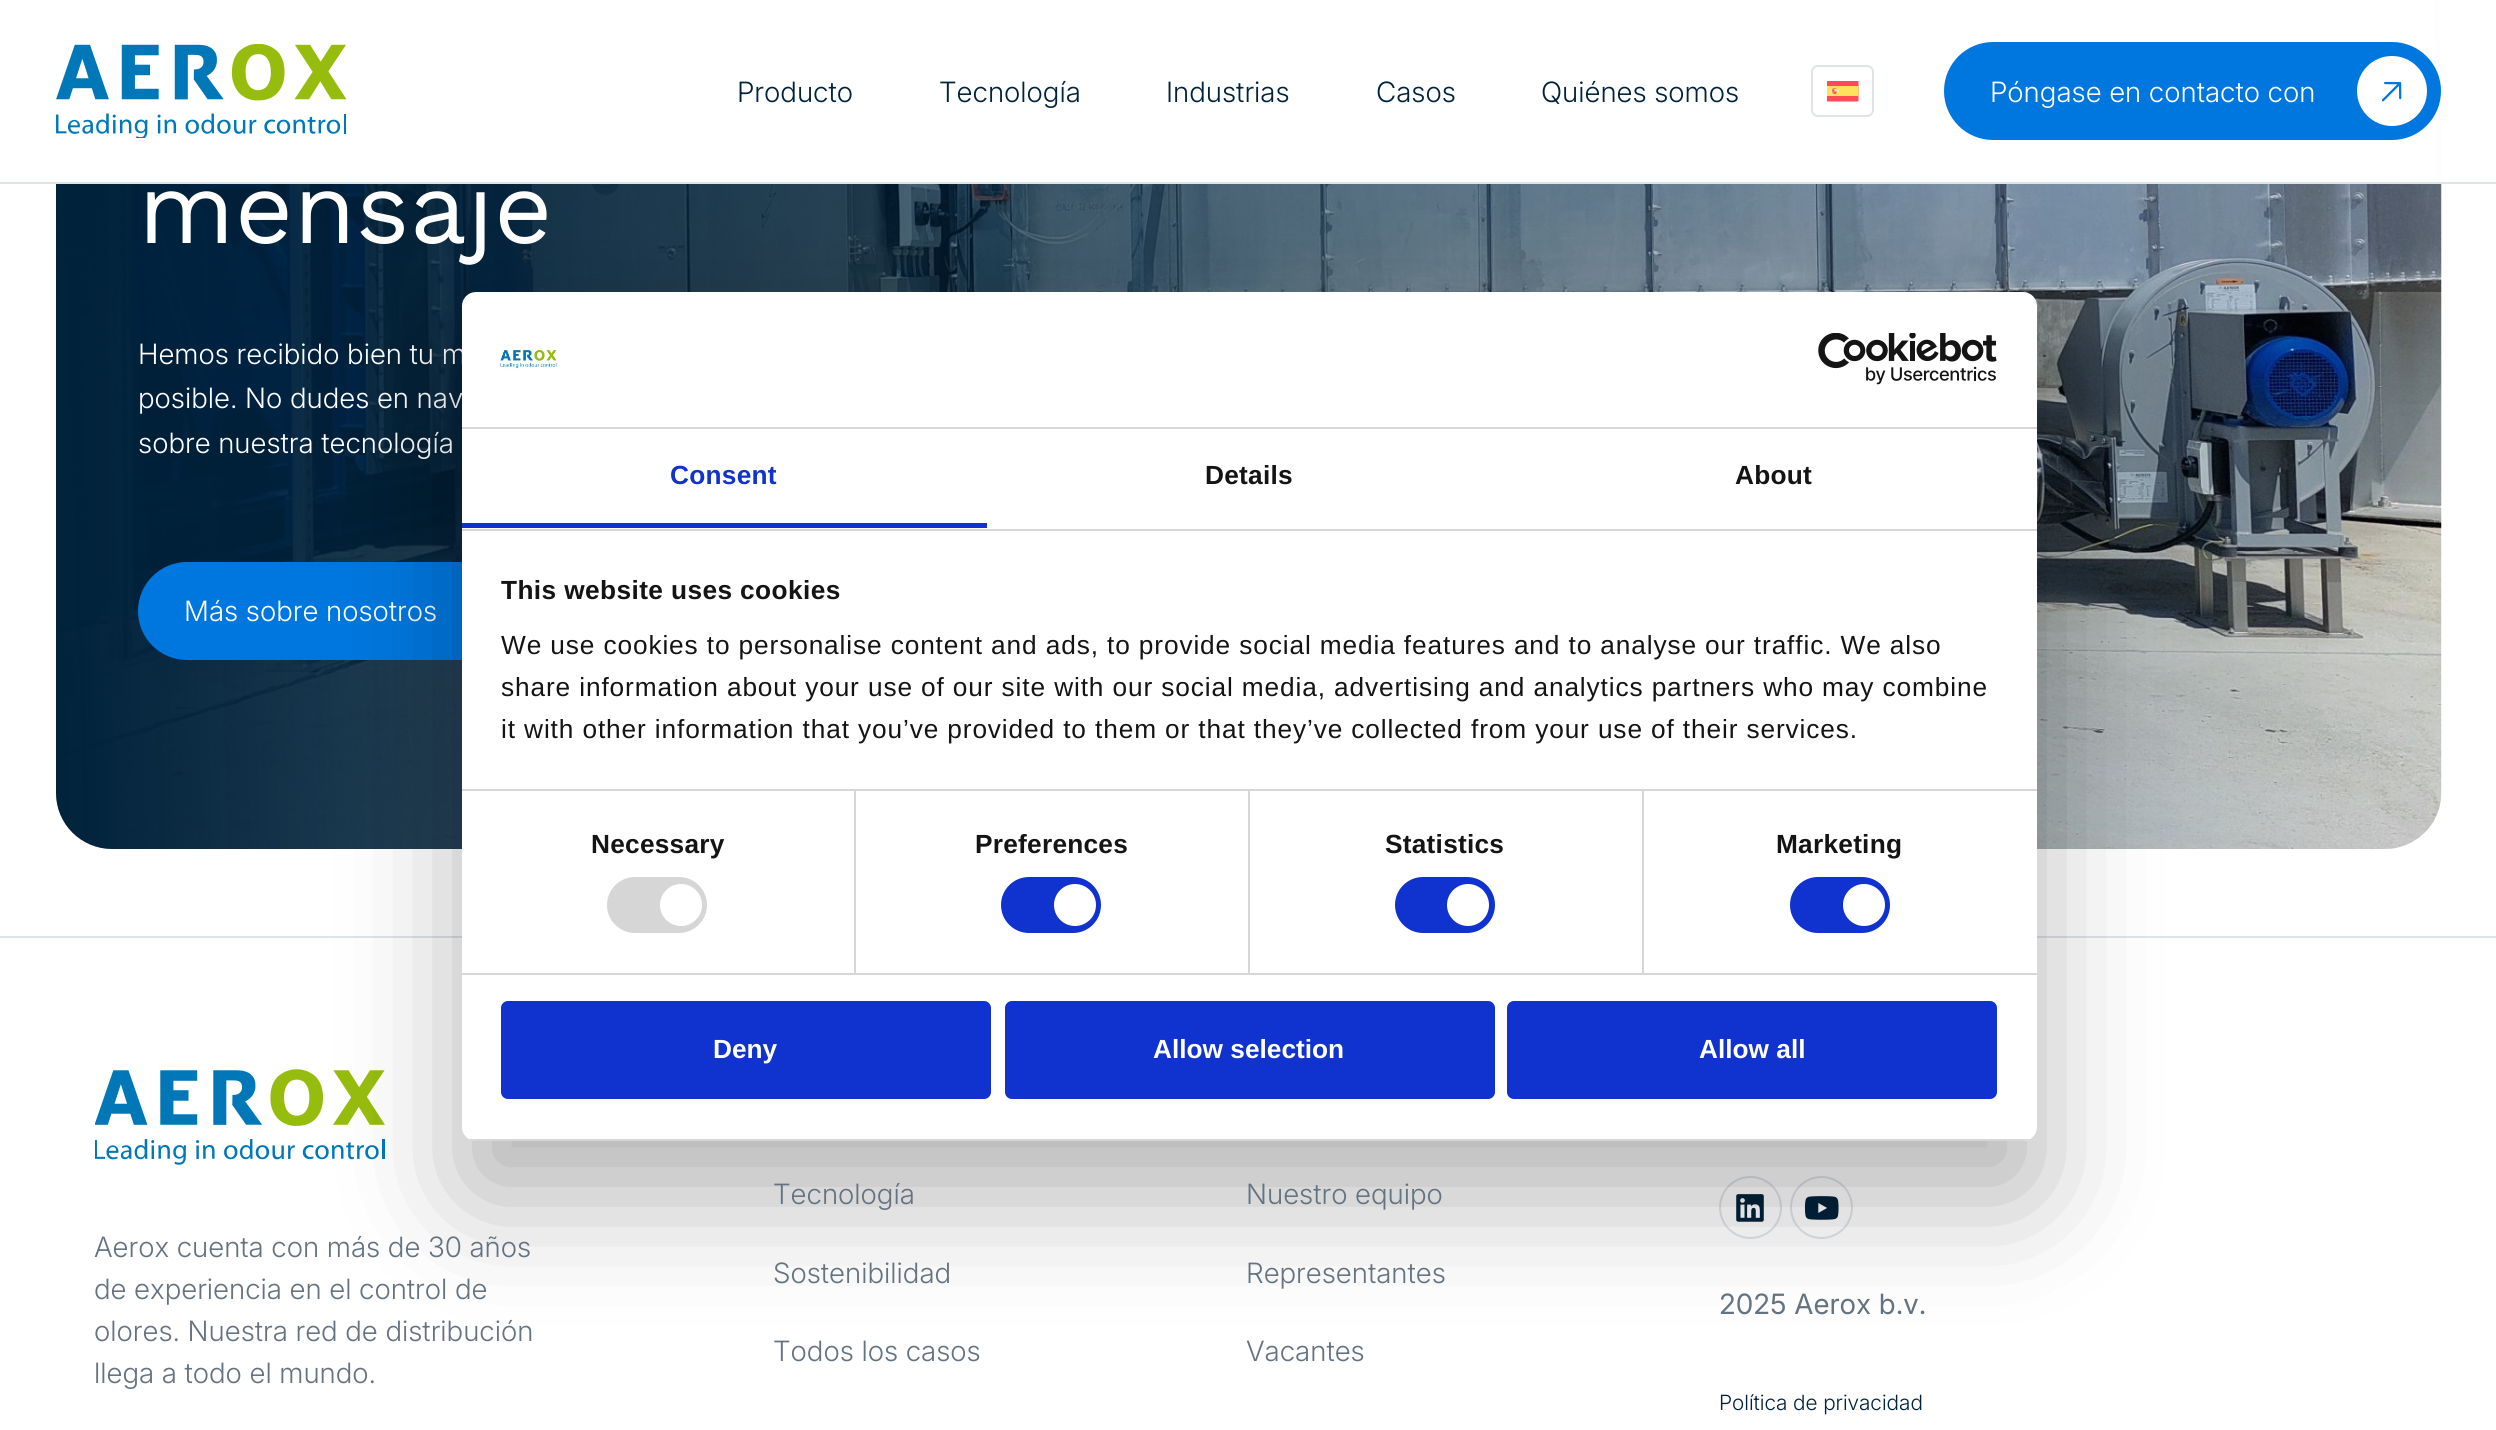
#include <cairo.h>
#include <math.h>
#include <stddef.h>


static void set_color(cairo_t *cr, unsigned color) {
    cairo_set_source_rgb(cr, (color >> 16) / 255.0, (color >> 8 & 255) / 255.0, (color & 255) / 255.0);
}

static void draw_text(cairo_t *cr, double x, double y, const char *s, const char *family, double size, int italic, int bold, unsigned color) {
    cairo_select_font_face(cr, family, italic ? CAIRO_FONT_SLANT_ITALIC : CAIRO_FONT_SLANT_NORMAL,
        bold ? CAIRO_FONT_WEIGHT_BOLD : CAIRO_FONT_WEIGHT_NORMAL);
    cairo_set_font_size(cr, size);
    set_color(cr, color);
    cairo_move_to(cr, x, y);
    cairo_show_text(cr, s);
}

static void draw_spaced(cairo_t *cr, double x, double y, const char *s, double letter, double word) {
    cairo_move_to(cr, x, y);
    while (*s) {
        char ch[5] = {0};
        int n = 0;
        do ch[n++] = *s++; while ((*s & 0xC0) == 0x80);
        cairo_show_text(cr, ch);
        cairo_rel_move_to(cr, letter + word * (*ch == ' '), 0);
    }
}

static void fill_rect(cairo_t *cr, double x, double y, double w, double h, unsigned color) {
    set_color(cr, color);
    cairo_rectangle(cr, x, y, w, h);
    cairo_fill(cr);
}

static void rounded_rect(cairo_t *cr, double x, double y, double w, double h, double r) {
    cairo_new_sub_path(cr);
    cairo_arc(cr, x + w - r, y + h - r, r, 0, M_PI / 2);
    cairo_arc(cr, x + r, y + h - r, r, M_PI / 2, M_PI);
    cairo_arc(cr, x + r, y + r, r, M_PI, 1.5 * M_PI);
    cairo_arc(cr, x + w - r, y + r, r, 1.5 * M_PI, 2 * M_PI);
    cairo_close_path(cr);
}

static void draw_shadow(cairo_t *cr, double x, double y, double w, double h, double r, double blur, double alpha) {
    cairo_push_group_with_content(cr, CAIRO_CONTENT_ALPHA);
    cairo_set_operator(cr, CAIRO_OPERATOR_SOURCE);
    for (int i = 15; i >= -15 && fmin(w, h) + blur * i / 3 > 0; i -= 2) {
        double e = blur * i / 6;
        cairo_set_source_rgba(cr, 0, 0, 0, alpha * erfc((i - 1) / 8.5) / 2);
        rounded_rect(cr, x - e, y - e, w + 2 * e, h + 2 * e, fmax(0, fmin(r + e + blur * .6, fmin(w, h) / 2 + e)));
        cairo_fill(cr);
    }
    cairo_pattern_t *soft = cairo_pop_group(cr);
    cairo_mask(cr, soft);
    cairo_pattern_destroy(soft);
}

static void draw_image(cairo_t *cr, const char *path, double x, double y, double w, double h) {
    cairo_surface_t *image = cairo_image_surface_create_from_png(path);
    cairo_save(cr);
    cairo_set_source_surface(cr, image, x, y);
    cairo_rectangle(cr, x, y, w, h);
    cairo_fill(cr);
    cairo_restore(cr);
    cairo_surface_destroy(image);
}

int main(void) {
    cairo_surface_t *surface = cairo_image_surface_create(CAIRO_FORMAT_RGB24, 2496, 1430);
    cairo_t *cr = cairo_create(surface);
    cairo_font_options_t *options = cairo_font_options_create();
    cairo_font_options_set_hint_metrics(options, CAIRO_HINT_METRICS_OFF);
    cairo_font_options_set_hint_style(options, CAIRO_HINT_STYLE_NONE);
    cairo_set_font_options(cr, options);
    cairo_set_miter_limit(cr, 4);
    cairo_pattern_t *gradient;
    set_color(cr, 0xFFFFFF);
    cairo_paint(cr);
    draw_image(cr, "assets/img4.png", 56, 184, 2386, 665);
    gradient = cairo_pattern_create_linear(2460, 215, 37, 300);
    cairo_pattern_add_color_stop_rgba(gradient, 0, 0, 0.133, 0.231, 0);
    cairo_pattern_add_color_stop_rgba(gradient, 1, 0, 0.133, 0.231, 1);
    cairo_set_source(cr, gradient);
    cairo_pattern_destroy(gradient);
    rounded_rect(cr, 56, -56, 2385, 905, 56);
    cairo_fill(cr);
    fill_rect(cr, 56, 0, 2379, 182, 0xFFFFFF);
    draw_text(cr, 138, 243, "mensaje", "Work Sans", 101.5, 0, 0, 0xFFFFFF);
    fill_rect(cr, 0, 182, 2496, 2, 0xDFE4EA);
    draw_image(cr, "assets/img1.png", 56, 44, 291, 94);
    draw_text(cr, 737, 102, "Producto", "Inter Light", 28, 0, 0, 0x00223B);
    draw_text(cr, 939, 102, "Tecnología", "Inter Light", 28, 0, 0, 0x00223B);
    draw_text(cr, 1166, 102, "Industrias", "Inter Light", 28, 0, 0, 0x00223B);
    draw_text(cr, 1376, 102, "Casos", "Inter Light", 28, 0, 0, 0x00223B);
    draw_text(cr, 1541, 102, "Quiénes somos", "Inter Light", 28, 0, 0, 0x00223B);
    rounded_rect(cr, 1812, 66, 61, 50, 6);
    set_color(cr, 0xDFE4EA);
    cairo_stroke(cr);
    draw_image(cr, "assets/img2.png", 1827, 81, 32, 21);
    set_color(cr, 0x0077DF);
    rounded_rect(cr, 1944, 42, 497, 98, 49);
    cairo_fill(cr);
    draw_text(cr, 1990, 102, "Póngase en contacto con", "Inter Light", 28, 0, 0, 0xFFFFFF);
    cairo_new_path(cr);
    cairo_arc(cr, 2392, 91, 35, 0, 2 * M_PI);
    cairo_fill(cr);
    draw_image(cr, "assets/img3.png", 2382, 81, 20, 21);
    draw_text(cr, 138, 364, "Hemos recibido bien tu m", "Inter Light", 28, 0, 0, 0xFFFFFF);
    draw_text(cr, 138, 408, "posible. No dudes en nav", "Inter Light", 28, 0, 0, 0xFFFFFF);
    draw_text(cr, 138, 453, "sobre nuestra tecnología", "Inter Light", 28, 0, 0, 0xFFFFFF);
    set_color(cr, 0x0077DF);
    rounded_rect(cr, 138, 562, 426, 98, 49);
    cairo_fill(cr);
    draw_text(cr, 184, 621, "Más sobre nosotros", "Inter Light", 28, 0, 0, 0xFFFFFF);
    fill_rect(cr, 0, 936, 2496, 2, 0xDFE4EA);
    draw_image(cr, "assets/img7.png", 95, 1069, 290, 96);
    cairo_arc(cr, 1750.5, 1207.5, 30.5, 0, 2 * M_PI);
    cairo_stroke(cr);
    draw_image(cr, "assets/img8.png", 1736, 1194, 28, 28);
    cairo_arc(cr, 1821.5, 1207.5, 30.5, 0, 2 * M_PI);
    cairo_stroke(cr);
    draw_image(cr, "assets/img9.png", 1804, 1196, 35, 24);
    set_color(cr, 0x000000);
    draw_shadow(cr, 462, 348, 1575, 849, 14, 59.5, 0.3);
    set_color(cr, 0xFFFFFF);
    rounded_rect(cr, 462, 292, 1575, 849, 14);
    cairo_fill(cr);
    fill_rect(cr, 462, 427, 1575, 2, 0xD6D6D6);
    draw_image(cr, "assets/img5.png", 500, 349, 57, 21);
    draw_image(cr, "assets/img6.png", 1818, 333, 179, 52);
    fill_rect(cr, 462, 529, 1575, 2, 0xD6D6D6);
    fill_rect(cr, 462, 523, 525, 5, 0x1032CF);
    cairo_select_font_face(cr, "Liberation Sans", CAIRO_FONT_SLANT_NORMAL, CAIRO_FONT_WEIGHT_BOLD);
    cairo_set_font_size(cr, 26.25);
    draw_spaced(cr, 670, 484, "Consent", 0.25, 0);
    set_color(cr, 0x141414);
    draw_spaced(cr, 1205, 484, "Details", 0.25, 0);
    draw_spaced(cr, 1735, 484, "About", 0.25, 0);
    fill_rect(cr, 462, 789, 1575, 2, 0xD6D6D6);
    set_color(cr, 0x141414);
    draw_spaced(cr, 501, 599, "This website uses cookies", 0.4, 0);
    cairo_select_font_face(cr, "Liberation Sans", CAIRO_FONT_SLANT_NORMAL, CAIRO_FONT_WEIGHT_NORMAL);
    draw_spaced(cr, 501, 654, "We use cookies to personalise content and ads, to provide social media features and to analyse our traffic. We also", 0.88, 0);
    draw_spaced(cr, 501, 696, "share information about your use of our site with our social media, advertising and analytics partners who may combine", 0.88, 0);
    draw_spaced(cr, 501, 738, "it with other information that you’ve provided to them or that they’ve collected from your use of their services.", 0.88, 0);
    fill_rect(cr, 462, 973, 1575, 2, 0xD6D6D6);
    fill_rect(cr, 854, 791, 2, 182, 0xD6D6D6);
    cairo_select_font_face(cr, "Liberation Sans", CAIRO_FONT_SLANT_NORMAL, CAIRO_FONT_WEIGHT_BOLD);
    set_color(cr, 0x141414);
    draw_spaced(cr, 591, 853, "Necessary", 0.25, 0);
    set_color(cr, 0xD6D6D6);
    rounded_rect(cr, 607, 877, 100, 56, 28);
    cairo_fill(cr);
    set_color(cr, 0xFFFFFF);
    cairo_arc(cr, 681, 905, 21, 0, 2 * M_PI);
    cairo_fill(cr);
    fill_rect(cr, 1248, 791, 2, 182, 0xD6D6D6);
    set_color(cr, 0x141414);
    draw_spaced(cr, 975, 853, "Preferences", 0.25, 0);
    set_color(cr, 0x1032CF);
    rounded_rect(cr, 1001, 877, 100, 56, 28);
    cairo_fill(cr);
    set_color(cr, 0xFFFFFF);
    cairo_arc(cr, 1075, 905, 21, 0, 2 * M_PI);
    cairo_fill(cr);
    fill_rect(cr, 1642, 791, 2, 182, 0xD6D6D6);
    set_color(cr, 0x141414);
    draw_spaced(cr, 1385, 853, "Statistics", 0.25, 0);
    set_color(cr, 0x1032CF);
    rounded_rect(cr, 1395, 877, 100, 56, 28);
    cairo_fill(cr);
    set_color(cr, 0xFFFFFF);
    cairo_arc(cr, 1468, 905, 21, 0, 2 * M_PI);
    cairo_fill(cr);
    set_color(cr, 0x141414);
    draw_spaced(cr, 1776, 853, "Marketing", 0.25, 0);
    set_color(cr, 0x1032CF);
    rounded_rect(cr, 1790, 877, 100, 56, 28);
    cairo_fill(cr);
    set_color(cr, 0xFFFFFF);
    cairo_arc(cr, 1864, 905, 21, 0, 2 * M_PI);
    cairo_fill(cr);
    cairo_save(cr);
    rounded_rect(cr, 462, 292, 1575, 849, 14);
    cairo_clip(cr);
    fill_rect(cr, 462, 1139, 1575, 2, 0xD6D6D6);
    cairo_restore(cr);
    set_color(cr, 0x1032CF);
    rounded_rect(cr, 503, 1003, 486, 94, 5);
    cairo_fill_preserve(cr);
    cairo_set_line_width(cr, 4);
    cairo_stroke(cr);
    draw_text(cr, 713, 1058, "Deny", "Liberation Sans", 26.25, 0, 1, 0xFFFFFF);
    set_color(cr, 0x1032CF);
    rounded_rect(cr, 1007, 1003, 486, 94, 5);
    cairo_fill_preserve(cr);
    cairo_stroke(cr);
    draw_text(cr, 1153, 1058, "Allow selection", "Liberation Sans", 26.25, 0, 1, 0xFFFFFF);
    set_color(cr, 0x1032CF);
    rounded_rect(cr, 1509, 1003, 486, 94, 5);
    cairo_fill_preserve(cr);
    cairo_stroke(cr);
    draw_text(cr, 1699, 1058, "Allow all", "Liberation Sans", 26.25, 0, 1, 0xFFFFFF);
    draw_text(cr, 94, 1257, "Aerox cuenta con más de 30 años", "Inter Light", 28, 0, 0, 0x637381);
    draw_text(cr, 94, 1299, "de experiencia en el control de", "Inter Light", 28, 0, 0, 0x637381);
    draw_text(cr, 94, 1341, "olores. Nuestra red de distribución", "Inter Light", 28, 0, 0, 0x637381);
    draw_text(cr, 94, 1383, "llega a todo el mundo.", "Inter Light", 28, 0, 0, 0x637381);
    draw_text(cr, 773, 1204, "Tecnología", "Inter Light", 28, 0, 0, 0x637381);
    draw_text(cr, 773, 1283, "Sostenibilidad", "Inter Light", 28, 0, 0, 0x637381);
    draw_text(cr, 773, 1361, "Todos los casos", "Inter Light", 28, 0, 0, 0x637381);
    draw_text(cr, 1246, 1204, "Nuestro equipo", "Inter Light", 28, 0, 0, 0x637381);
    draw_text(cr, 1246, 1283, "Representantes", "Inter Light", 28, 0, 0, 0x637381);
    draw_text(cr, 1246, 1361, "Vacantes", "Inter Light", 28, 0, 0, 0x637381);
    draw_text(cr, 1719, 1314, "2025 Aerox b.v.", "Inter", 28, 0, 0, 0x637381);
    draw_text(cr, 1719, 1410, "Política de privacidad", "Inter Light", 21, 0, 0, 0x00223B);
    cairo_surface_write_to_png(surface, "output.png");
    cairo_font_options_destroy(options);
    cairo_destroy(cr);
    cairo_surface_destroy(surface);
    return 0;
}
